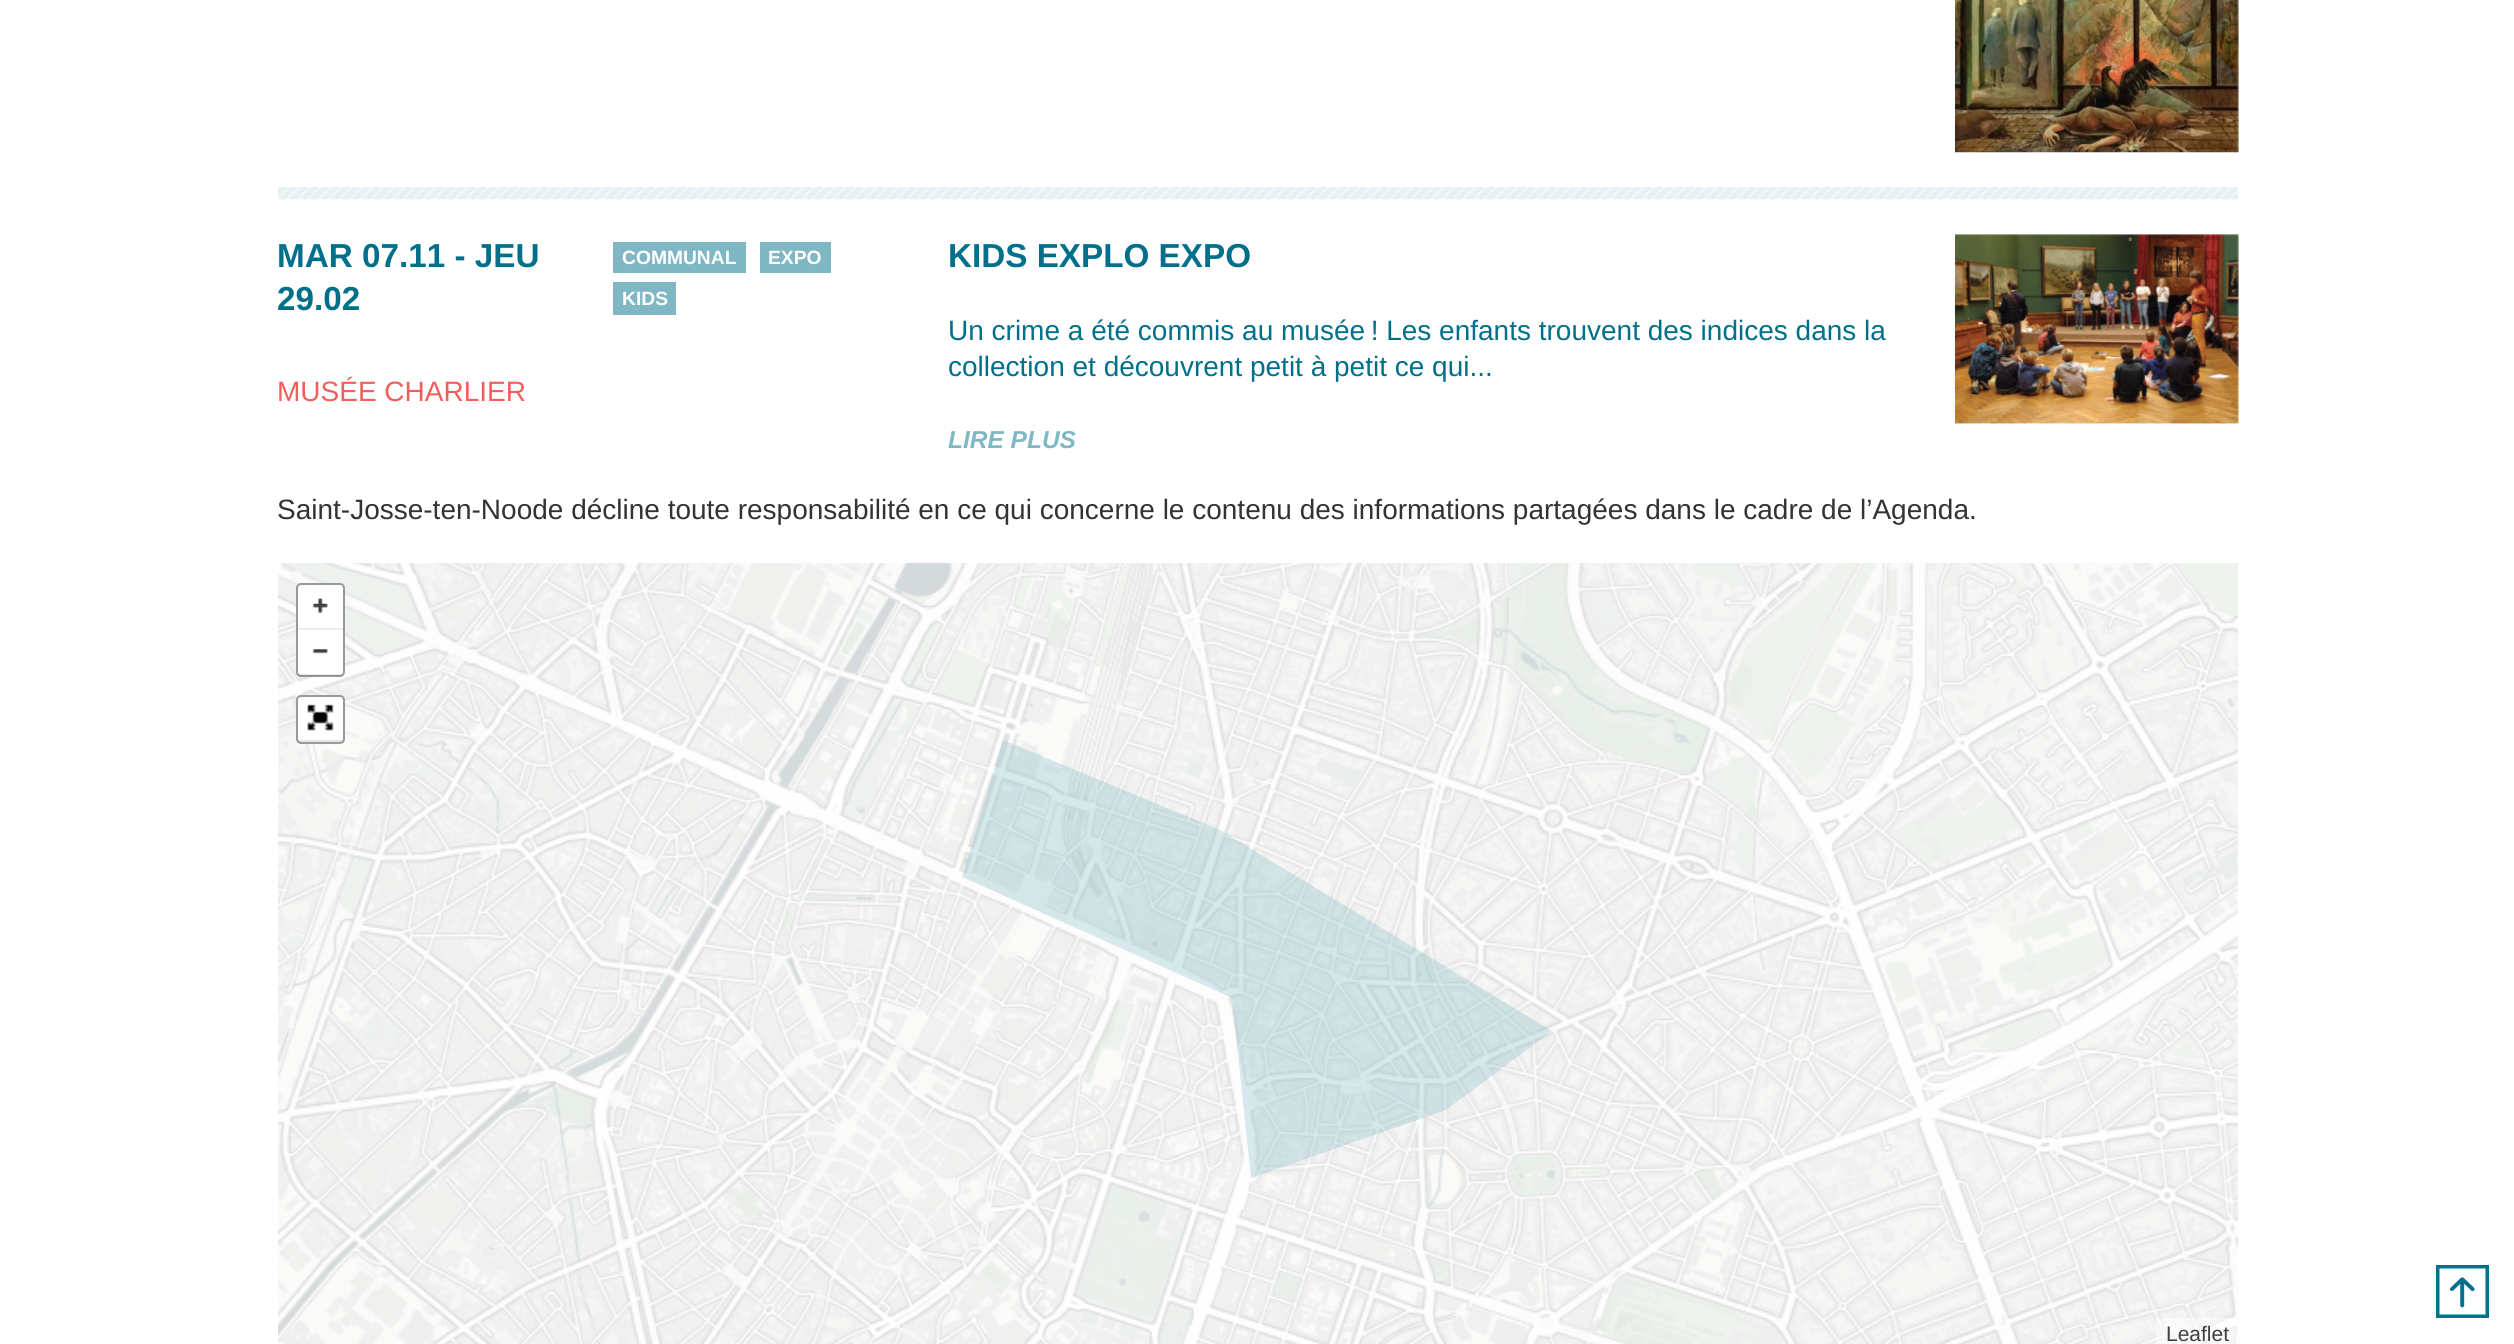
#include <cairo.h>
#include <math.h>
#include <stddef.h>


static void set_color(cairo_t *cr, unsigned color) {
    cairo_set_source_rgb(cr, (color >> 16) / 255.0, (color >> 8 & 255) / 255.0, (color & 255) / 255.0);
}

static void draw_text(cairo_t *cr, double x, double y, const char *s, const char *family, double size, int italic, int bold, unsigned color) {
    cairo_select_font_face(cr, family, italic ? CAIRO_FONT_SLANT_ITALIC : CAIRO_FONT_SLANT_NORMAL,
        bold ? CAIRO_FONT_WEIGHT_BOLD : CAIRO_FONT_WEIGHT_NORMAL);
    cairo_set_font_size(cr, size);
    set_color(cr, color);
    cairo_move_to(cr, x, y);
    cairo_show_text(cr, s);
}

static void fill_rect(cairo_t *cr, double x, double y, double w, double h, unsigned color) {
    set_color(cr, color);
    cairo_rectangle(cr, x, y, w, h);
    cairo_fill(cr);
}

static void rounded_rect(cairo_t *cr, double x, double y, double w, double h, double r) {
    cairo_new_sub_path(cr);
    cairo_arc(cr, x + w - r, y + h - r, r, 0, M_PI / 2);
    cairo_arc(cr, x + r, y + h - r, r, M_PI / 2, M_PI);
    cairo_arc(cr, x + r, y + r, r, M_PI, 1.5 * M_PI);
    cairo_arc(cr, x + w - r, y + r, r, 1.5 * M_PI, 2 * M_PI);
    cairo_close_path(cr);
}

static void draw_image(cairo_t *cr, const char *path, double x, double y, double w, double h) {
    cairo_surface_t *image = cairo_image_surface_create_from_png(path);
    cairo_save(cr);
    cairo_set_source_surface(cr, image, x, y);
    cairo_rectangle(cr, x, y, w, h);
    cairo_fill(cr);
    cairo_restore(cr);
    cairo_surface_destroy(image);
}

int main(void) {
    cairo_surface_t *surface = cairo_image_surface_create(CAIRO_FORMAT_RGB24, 2514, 1344);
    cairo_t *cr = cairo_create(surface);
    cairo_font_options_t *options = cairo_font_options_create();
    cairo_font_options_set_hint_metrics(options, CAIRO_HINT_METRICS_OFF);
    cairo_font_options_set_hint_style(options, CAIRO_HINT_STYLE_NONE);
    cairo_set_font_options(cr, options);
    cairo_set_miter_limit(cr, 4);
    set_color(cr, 0xFFFFFF);
    cairo_paint(cr);
    draw_image(cr, "assets/img1.png", 1955, 0, 284, 153);
    draw_image(cr, "assets/img2.png", 278, 187, 1960, 13);
    draw_text(cr, 277, 267, "MAR 07.11 - JEU", "Liberation Sans", 33.25, 0, 1, 0x00708A);
    draw_text(cr, 277, 310, "29.02", "Liberation Sans", 33.25, 0, 1, 0x00708A);
    draw_text(cr, 277, 401, "MUSÉE CHARLIER", "Liberation Sans", 28, 0, 0, 0xF15E5C);
    fill_rect(cr, 613, 242, 133, 31, 0x80B7C4);
    draw_text(cr, 622, 264, "COMMUNAL", "Liberation Sans", 19.25, 0, 1, 0xFFFFFF);
    fill_rect(cr, 760, 242, 71, 31, 0x80B7C4);
    draw_text(cr, 768, 264, "EXPO", "Liberation Sans", 19.25, 0, 1, 0xFFFFFF);
    fill_rect(cr, 613, 282, 63, 33, 0x80B7C4);
    draw_text(cr, 622, 305, "KIDS", "Liberation Sans", 19.25, 0, 1, 0xFFFFFF);
    draw_text(cr, 948, 267, "KIDS EXPLO EXPO", "Liberation Sans", 33.25, 0, 1, 0x00708A);
    draw_text(cr, 948, 340, "Un crime a été commis au musée ! Les enfants trouvent des indices dans la", "Liberation Sans", 28, 0, 0, 0x00708A);
    draw_text(cr, 948, 376, "collection et découvrent petit à petit ce qui...", "Liberation Sans", 28, 0, 0, 0x00708A);
    draw_text(cr, 948, 448, "LIRE PLUS", "Liberation Sans", 24.5, 1, 1, 0x80B7C4);
    draw_image(cr, "assets/img3.png", 1955, 234, 284, 190);
    draw_text(cr, 277, 519, "Saint-Josse-ten-Noode décline toute responsabilité en ce qui concerne le contenu des informations partagées dans le cadre de l’Agenda.", "Liberation Sans", 28, 0, 0, 0x333333);
    draw_image(cr, "assets/img4.png", 278, 563, 140, 144);
    draw_image(cr, "assets/img5.png", 418, 563, 448, 144);
    draw_image(cr, "assets/img6.png", 866, 563, 448, 144);
    draw_image(cr, "assets/img7.png", 1314, 563, 448, 144);
    draw_image(cr, "assets/img8.png", 1762, 563, 448, 144);
    draw_image(cr, "assets/img9.png", 2210, 563, 28, 144);
    draw_image(cr, "assets/img10.png", 278, 707, 140, 448);
    draw_image(cr, "assets/img12.png", 866, 707, 449, 448);
    draw_image(cr, "assets/img11.png", 418, 707, 449, 448);
    draw_image(cr, "assets/img13.png", 1314, 707, 449, 448);
    draw_image(cr, "assets/img14.png", 1762, 707, 448, 448);
    draw_image(cr, "assets/img15.png", 2210, 707, 28, 448);
    draw_image(cr, "assets/img16.png", 278, 1155, 140, 189);
    draw_image(cr, "assets/img17.png", 418, 1155, 448, 189);
    draw_image(cr, "assets/img18.png", 866, 1155, 448, 189);
    draw_image(cr, "assets/img19.png", 1314, 1155, 448, 189);
    draw_image(cr, "assets/img20.png", 1762, 1155, 448, 189);
    draw_image(cr, "assets/img21.png", 2210, 1155, 28, 189);
    cairo_set_source_rgba(cr, 0.502, 0.718, 0.769, 0.3);
    cairo_set_fill_rule(cr, CAIRO_FILL_RULE_EVEN_ODD);
    cairo_new_path(cr);
    cairo_move_to(cr, 1003, 740);
    cairo_line_to(cr, 962, 877);
    cairo_line_to(cr, 1232, 998);
    cairo_line_to(cr, 1251, 1178);
    cairo_line_to(cr, 1446, 1110);
    cairo_line_to(cr, 1552, 1031);
    cairo_line_to(cr, 1220, 830);
    cairo_close_path(cr);
    cairo_fill(cr);
    set_color(cr, 0xFFFFFF);
    rounded_rect(cr, 296, 583, 49, 94, 5);
    cairo_fill(cr);
    rounded_rect(cr, 297, 584, 47, 92, 4);
    cairo_set_source_rgba(cr, 0, 0, 0, 0.4);
    cairo_stroke(cr);
    draw_image(cr, "assets/img22.png", 312, 597, 16, 16);
    fill_rect(cr, 298, 628, 45, 2, 0xECECEC);
    draw_image(cr, "assets/img23.png", 312, 649, 16, 5);
    cairo_set_source_rgba(cr, 0, 0, 0, 0.08);
    cairo_rectangle(cr, 298, 674, 45, 2);
    cairo_fill(cr);
    set_color(cr, 0xFFFFFF);
    rounded_rect(cr, 296, 695, 49, 49, 5);
    cairo_fill(cr);
    rounded_rect(cr, 297, 696, 47, 47, 4);
    cairo_set_source_rgba(cr, 0, 0, 0, 0.4);
    cairo_stroke(cr);
    draw_image(cr, "assets/img24.png", 307, 704, 27, 27);
    cairo_set_source_rgba(cr, 0, 0, 0, 0.1);
    cairo_rectangle(cr, 298, 740, 45, 2);
    cairo_fill(cr);
    cairo_set_source_rgba(cr, 1, 1, 1, 0.5);
    cairo_rectangle(cr, 2156, 1318, 82, 26);
    cairo_fill(cr);
    draw_text(cr, 2166, 1341, "Leaflet", "Liberation Sans", 21, 0, 0, 0x404040);
    draw_image(cr, "assets/img25.png", 2436, 1265, 53, 53);
    cairo_surface_write_to_png(surface, "output.png");
    cairo_font_options_destroy(options);
    cairo_destroy(cr);
    cairo_surface_destroy(surface);
    return 0;
}
